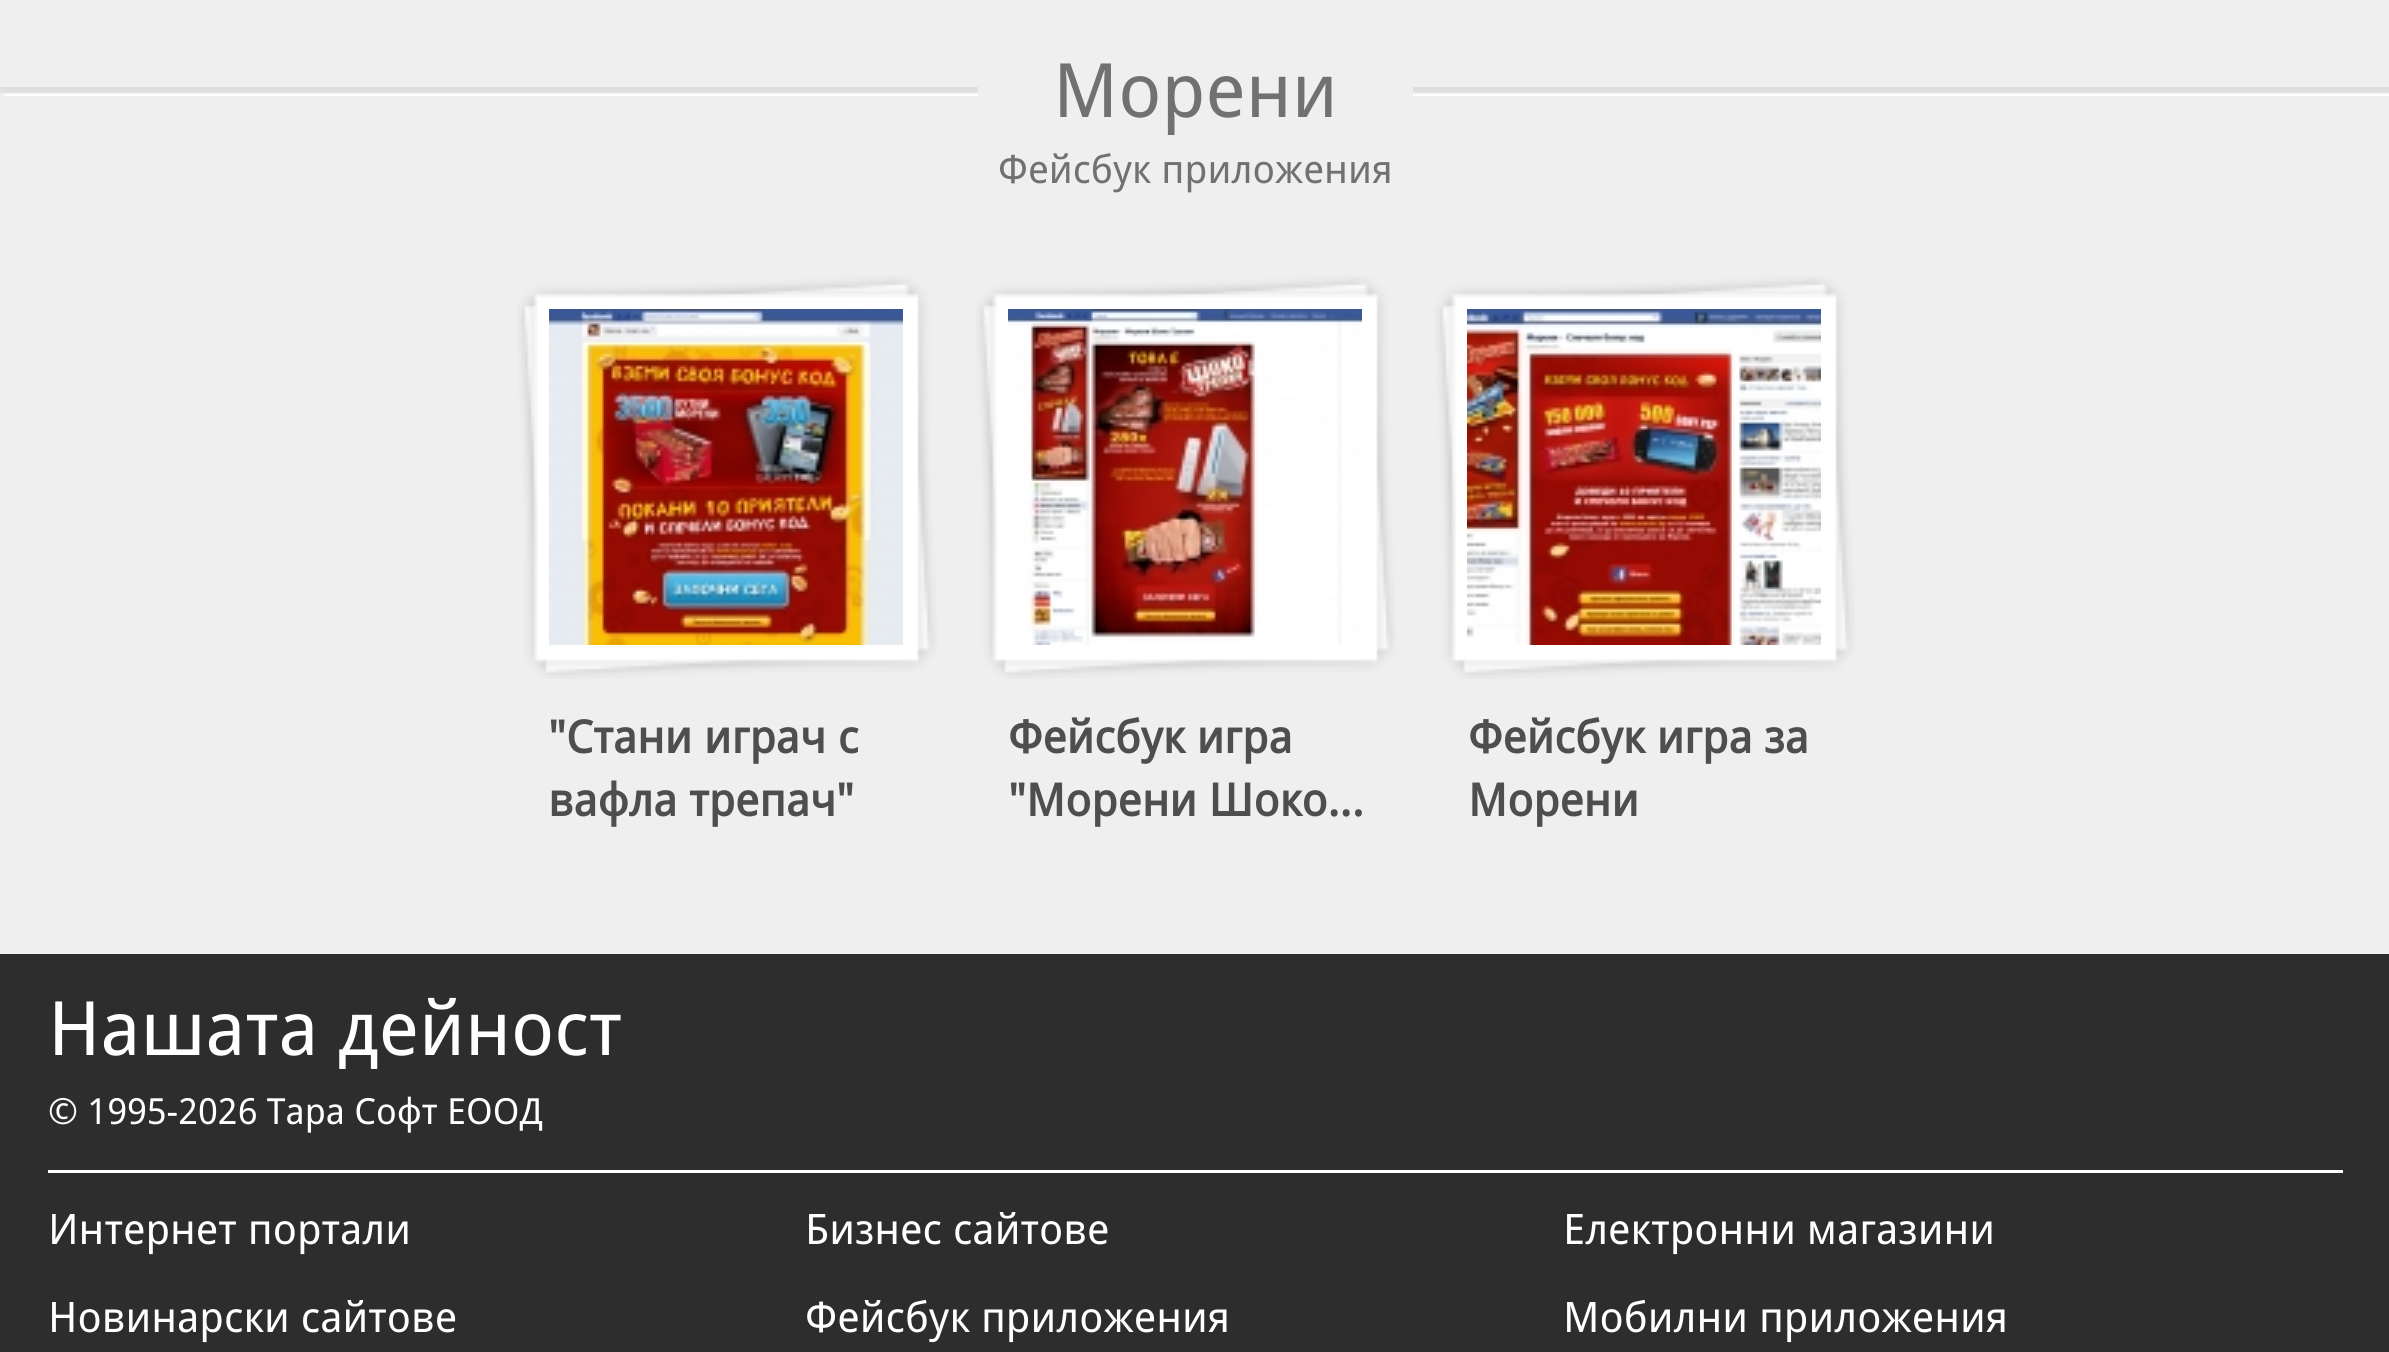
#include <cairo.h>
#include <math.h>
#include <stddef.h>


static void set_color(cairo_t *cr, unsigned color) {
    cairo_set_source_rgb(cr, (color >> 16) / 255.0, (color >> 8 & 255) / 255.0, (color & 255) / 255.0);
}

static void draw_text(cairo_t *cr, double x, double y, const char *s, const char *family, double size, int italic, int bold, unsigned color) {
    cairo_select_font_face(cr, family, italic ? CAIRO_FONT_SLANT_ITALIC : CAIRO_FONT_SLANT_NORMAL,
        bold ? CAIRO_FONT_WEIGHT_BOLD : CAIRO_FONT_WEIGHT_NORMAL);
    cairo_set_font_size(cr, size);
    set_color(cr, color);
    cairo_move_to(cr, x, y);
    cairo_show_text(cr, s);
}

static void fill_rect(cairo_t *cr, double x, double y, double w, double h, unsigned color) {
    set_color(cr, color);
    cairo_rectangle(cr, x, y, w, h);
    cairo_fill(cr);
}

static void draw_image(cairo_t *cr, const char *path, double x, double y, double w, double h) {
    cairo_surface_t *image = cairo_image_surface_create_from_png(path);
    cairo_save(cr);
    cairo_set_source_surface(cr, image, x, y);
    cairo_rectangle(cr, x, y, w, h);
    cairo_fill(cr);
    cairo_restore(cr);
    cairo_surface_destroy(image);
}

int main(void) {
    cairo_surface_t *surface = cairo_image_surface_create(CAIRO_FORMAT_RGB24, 2389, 1352);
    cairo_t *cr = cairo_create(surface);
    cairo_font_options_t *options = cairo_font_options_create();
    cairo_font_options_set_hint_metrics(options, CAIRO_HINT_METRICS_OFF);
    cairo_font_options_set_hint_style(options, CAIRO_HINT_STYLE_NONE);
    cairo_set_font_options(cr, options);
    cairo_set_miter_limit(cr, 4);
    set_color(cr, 0xEFEFEF);
    cairo_paint(cr);
    draw_image(cr, "assets/img1.png", 0, 87, 2389, 9);
    fill_rect(cr, 978, 87, 435, 9, 0xEFEFEF);
    draw_text(cr, 1053, 117, "Морени", "Droid Sans", 75, 0, 0, 0x717171);
    draw_text(cr, 998, 183, "Фейсбук приложения", "Droid Sans", 39, 0, 0, 0x717171);
    draw_image(cr, "assets/img2.png", 517, 276, 420, 403);
    draw_image(cr, "assets/img3.png", 549, 309, 354, 336);
    draw_text(cr, 548, 753, "\"Стани играч с", "Droid Sans", 45, 0, 1, 0x4E4E4E);
    draw_text(cr, 548, 816, "вафла трепач\"", "Droid Sans", 45, 0, 1, 0x4E4E4E);
    draw_image(cr, "assets/img4.png", 976, 276, 420, 403);
    draw_image(cr, "assets/img5.png", 1008, 309, 354, 336);
    draw_text(cr, 1008, 753, "Фейсбук игра", "Droid Sans", 45, 0, 1, 0x4E4E4E);
    draw_text(cr, 1008, 816, "\"Морени Шоко...", "Droid Sans", 45, 0, 1, 0x4E4E4E);
    draw_image(cr, "assets/img6.png", 1435, 276, 420, 403);
    draw_image(cr, "assets/img7.png", 1467, 309, 354, 336);
    draw_text(cr, 1468, 753, "Фейсбук игра за", "Droid Sans", 45, 0, 1, 0x4E4E4E);
    draw_text(cr, 1468, 816, "Морени", "Droid Sans", 45, 0, 1, 0x4E4E4E);
    fill_rect(cr, 0, 954, 2389, 398, 0x2D2D2D);
    fill_rect(cr, 48, 1170, 2295, 3, 0xFFFFFF);
    draw_text(cr, 48, 1055, "Нашата дейност", "Droid Sans", 75, 0, 0, 0xFFFFFF);
    draw_text(cr, 48, 1124, "© 1995-2026 Тара Софт ЕООД", "Droid Sans", 36, 0, 0, 0xFFFFFF);
    draw_text(cr, 48, 1244, "Интернет портали", "Droid Sans", 42, 0, 0, 0xFFFFFF);
    draw_text(cr, 805, 1244, "Бизнес сайтове", "Droid Sans", 42, 0, 0, 0xFFFFFF);
    draw_text(cr, 1563, 1244, "Електронни магазини", "Droid Sans", 42, 0, 0, 0xFFFFFF);
    draw_text(cr, 48, 1332, "Новинарски сайтове", "Droid Sans", 42, 0, 0, 0xFFFFFF);
    draw_text(cr, 805, 1332, "Фейсбук приложения", "Droid Sans", 42, 0, 0, 0xFFFFFF);
    draw_text(cr, 1563, 1332, "Мобилни приложения", "Droid Sans", 42, 0, 0, 0xFFFFFF);
    cairo_surface_write_to_png(surface, "output.png");
    cairo_font_options_destroy(options);
    cairo_destroy(cr);
    cairo_surface_destroy(surface);
    return 0;
}
